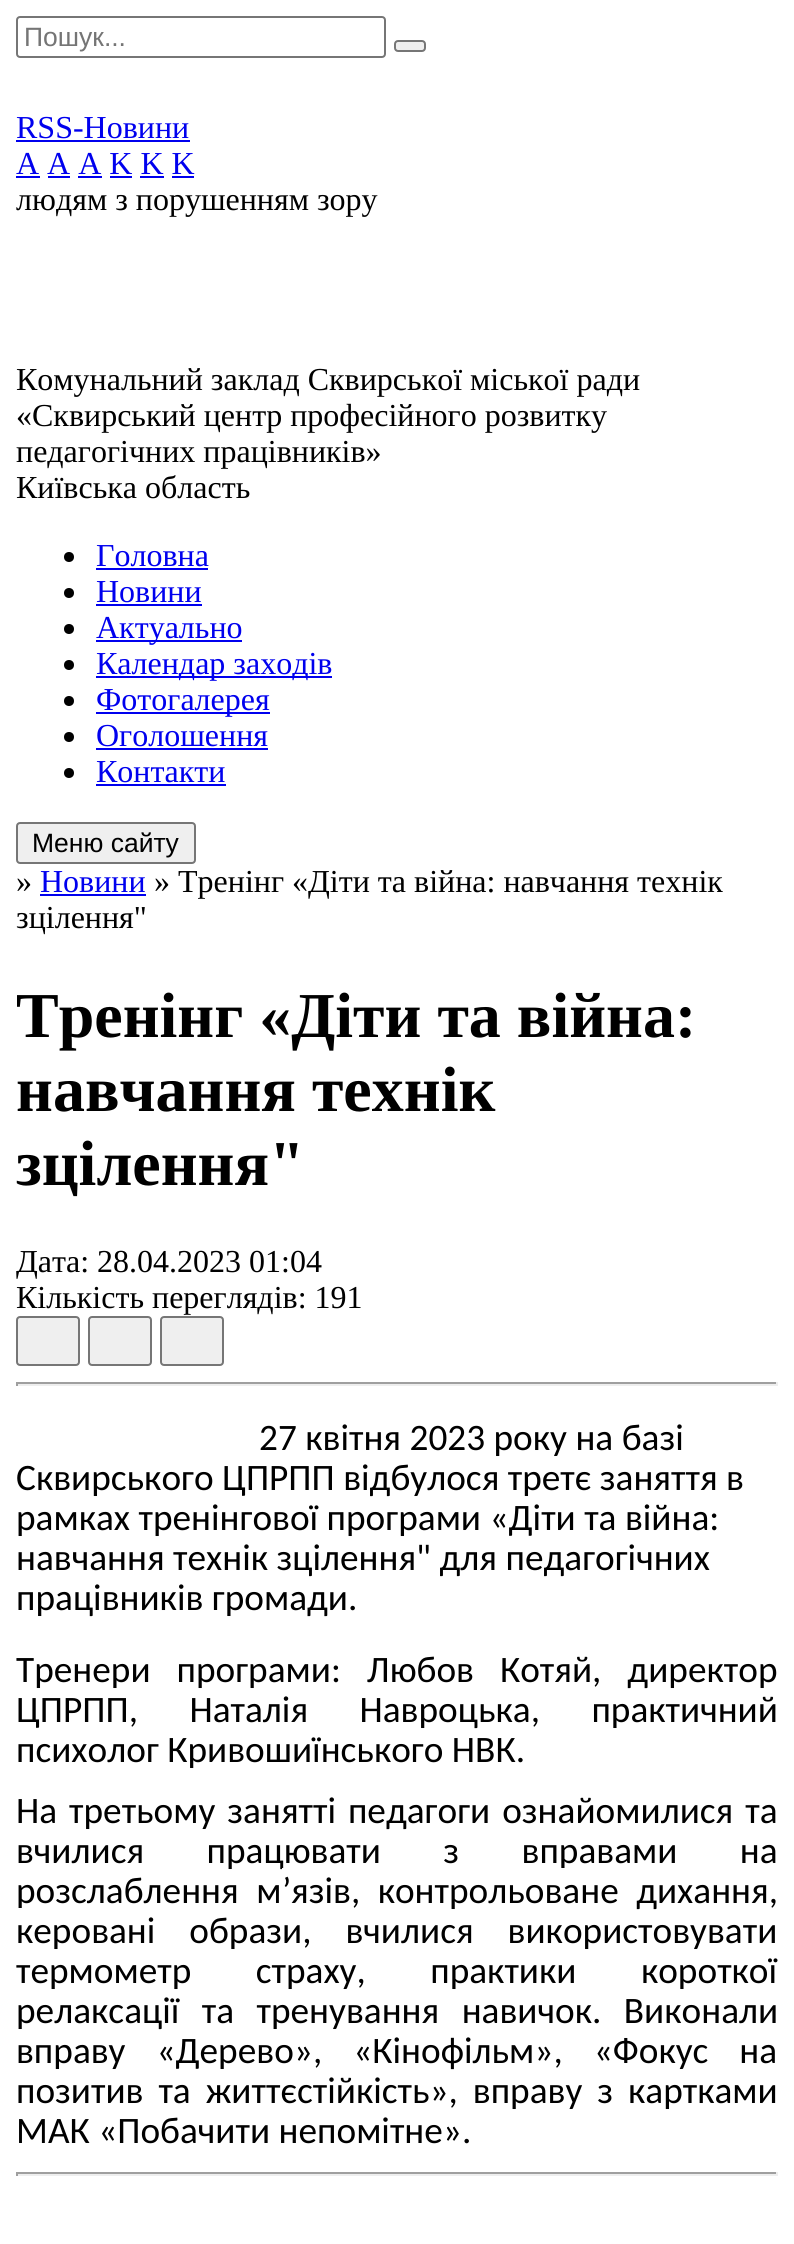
#include <cairo.h>
#include <math.h>
#include <stddef.h>


static void set_color(cairo_t *cr, unsigned color) {
    cairo_set_source_rgb(cr, (color >> 16) / 255.0, (color >> 8 & 255) / 255.0, (color & 255) / 255.0);
}

static void draw_text(cairo_t *cr, double x, double y, const char *s, const char *family, double size, int italic, int bold, unsigned color) {
    cairo_select_font_face(cr, family, italic ? CAIRO_FONT_SLANT_ITALIC : CAIRO_FONT_SLANT_NORMAL,
        bold ? CAIRO_FONT_WEIGHT_BOLD : CAIRO_FONT_WEIGHT_NORMAL);
    cairo_set_font_size(cr, size);
    set_color(cr, color);
    cairo_move_to(cr, x, y);
    cairo_show_text(cr, s);
}

static void draw_spaced(cairo_t *cr, double x, double y, const char *s, double letter, double word) {
    cairo_move_to(cr, x, y);
    while (*s) {
        char ch[5] = {0};
        int n = 0;
        do ch[n++] = *s++; while ((*s & 0xC0) == 0x80);
        cairo_show_text(cr, ch);
        cairo_rel_move_to(cr, letter + word * (*ch == ' '), 0);
    }
}

static void fill_rect(cairo_t *cr, double x, double y, double w, double h, unsigned color) {
    set_color(cr, color);
    cairo_rectangle(cr, x, y, w, h);
    cairo_fill(cr);
}

static void rounded_rect(cairo_t *cr, double x, double y, double w, double h, double r) {
    cairo_new_sub_path(cr);
    cairo_arc(cr, x + w - r, y + h - r, r, 0, M_PI / 2);
    cairo_arc(cr, x + r, y + h - r, r, M_PI / 2, M_PI);
    cairo_arc(cr, x + r, y + r, r, M_PI, 1.5 * M_PI);
    cairo_arc(cr, x + w - r, y + r, r, 1.5 * M_PI, 2 * M_PI);
    cairo_close_path(cr);
}

int main(void) {
    cairo_surface_t *surface = cairo_image_surface_create(CAIRO_FORMAT_RGB24, 794, 2244);
    cairo_t *cr = cairo_create(surface);
    cairo_font_options_t *options = cairo_font_options_create();
    cairo_font_options_set_hint_metrics(options, CAIRO_HINT_METRICS_OFF);
    cairo_font_options_set_hint_style(options, CAIRO_HINT_STYLE_NONE);
    cairo_set_font_options(cr, options);
    cairo_set_miter_limit(cr, 4);
    set_color(cr, 0xFFFFFF);
    cairo_paint(cr);
    rounded_rect(cr, 17, 17, 368, 40, 3);
    set_color(cr, 0x767676);
    cairo_stroke(cr);
    draw_text(cr, 24, 46, "Пошук...", "Liberation Sans", 26.5, 0, 0, 0x757575);
    set_color(cr, 0xEFEFEF);
    rounded_rect(cr, 395, 41, 30, 10, 3);
    cairo_fill_preserve(cr);
    set_color(cr, 0x767676);
    cairo_stroke(cr);
    draw_text(cr, 16, 138, "RSS-Новини", "Liberation Serif", 32, 0, 0, 0x0000EE);
    fill_rect(cr, 16, 140, 174, 2, 0x0000EE);
    draw_text(cr, 16, 174, "A A A K K K", "Liberation Serif", 32, 0, 0, 0x0000EE);
    fill_rect(cr, 16, 176, 24, 2, 0x0000EE);
    fill_rect(cr, 48, 176, 22, 2, 0x0000EE);
    fill_rect(cr, 78, 176, 24, 2, 0x0000EE);
    fill_rect(cr, 110, 176, 22, 2, 0x0000EE);
    fill_rect(cr, 140, 176, 24, 2, 0x0000EE);
    fill_rect(cr, 172, 176, 22, 2, 0x0000EE);
    draw_text(cr, 16, 210, "людям з порушенням зору", "Liberation Serif", 32, 0, 0, 0x000000);
    draw_text(cr, 16, 390, "Комунальний заклад Сквирської міської ради", "Liberation Serif", 32, 0, 0, 0x000000);
    draw_text(cr, 16, 426, "«Сквирський центр професійного розвитку", "Liberation Serif", 32, 0, 0, 0x000000);
    draw_text(cr, 16, 462, "педагогічних працівників»", "Liberation Serif", 32, 0, 0, 0x000000);
    draw_text(cr, 16, 498, "Київська область", "Liberation Serif", 32, 0, 0, 0x000000);
    cairo_new_path(cr);
    cairo_arc(cr, 69, 557, 5, 0, 2 * M_PI);
    cairo_fill(cr);
    draw_text(cr, 96, 566, "Головна", "Liberation Serif", 32, 0, 0, 0x0000EE);
    fill_rect(cr, 96, 568, 112, 2, 0x0000EE);
    set_color(cr, 0x000000);
    cairo_new_path(cr);
    cairo_arc(cr, 69, 593, 5, 0, 2 * M_PI);
    cairo_fill(cr);
    draw_text(cr, 96, 602, "Новини", "Liberation Serif", 32, 0, 0, 0x0000EE);
    fill_rect(cr, 96, 604, 106, 2, 0x0000EE);
    set_color(cr, 0x000000);
    cairo_new_path(cr);
    cairo_arc(cr, 69, 629, 5, 0, 2 * M_PI);
    cairo_fill(cr);
    fill_rect(cr, 96, 640, 146, 2, 0x0000EE);
    draw_text(cr, 96, 638, "Актуально", "Liberation Serif", 32, 0, 0, 0x0000EE);
    set_color(cr, 0x000000);
    cairo_new_path(cr);
    cairo_arc(cr, 69, 665, 5, 0, 2 * M_PI);
    cairo_fill(cr);
    fill_rect(cr, 96, 676, 236, 2, 0x0000EE);
    draw_text(cr, 96, 674, "Календар заходів", "Liberation Serif", 32, 0, 0, 0x0000EE);
    set_color(cr, 0x000000);
    cairo_new_path(cr);
    cairo_arc(cr, 69, 701, 5, 0, 2 * M_PI);
    cairo_fill(cr);
    fill_rect(cr, 96, 712, 174, 2, 0x0000EE);
    draw_text(cr, 96, 710, "Фотогалерея", "Liberation Serif", 32, 0, 0, 0x0000EE);
    set_color(cr, 0x000000);
    cairo_new_path(cr);
    cairo_arc(cr, 69, 737, 5, 0, 2 * M_PI);
    cairo_fill(cr);
    draw_text(cr, 96, 746, "Оголошення", "Liberation Serif", 32, 0, 0, 0x0000EE);
    fill_rect(cr, 96, 748, 172, 2, 0x0000EE);
    set_color(cr, 0x000000);
    cairo_new_path(cr);
    cairo_arc(cr, 69, 773, 5, 0, 2 * M_PI);
    cairo_fill(cr);
    draw_text(cr, 96, 782, "Контакти", "Liberation Serif", 32, 0, 0, 0x0000EE);
    fill_rect(cr, 96, 784, 130, 2, 0x0000EE);
    set_color(cr, 0xEFEFEF);
    rounded_rect(cr, 17, 823, 178, 40, 3);
    cairo_fill_preserve(cr);
    set_color(cr, 0x767676);
    cairo_stroke(cr);
    draw_text(cr, 32, 852, "Меню сайту", "Liberation Sans", 26.5, 0, 0, 0x000000);
    draw_text(cr, 16, 892, "»", "Liberation Serif", 32, 0, 0, 0x000000);
    draw_text(cr, 40, 892, "Новини", "Liberation Serif", 32, 0, 0, 0x0000EE);
    fill_rect(cr, 40, 894, 106, 2, 0x0000EE);
    draw_text(cr, 154, 892, "» Тренінг «Діти та війна: навчання технік", "Liberation Serif", 32, 0, 0, 0x000000);
    draw_text(cr, 16, 928, "зцілення\"", "Liberation Serif", 32, 0, 0, 0x000000);
    draw_text(cr, 16, 1037, "Тренінг «Діти та війна:", "Liberation Serif", 64, 0, 1, 0x000000);
    draw_text(cr, 16, 1111, "навчання технік", "Liberation Serif", 64, 0, 1, 0x000000);
    draw_text(cr, 16, 1185, "зцілення\"", "Liberation Serif", 64, 0, 1, 0x000000);
    draw_text(cr, 16, 1272, "Дата: 28.04.2023 01:04", "Liberation Serif", 32, 0, 0, 0x000000);
    draw_text(cr, 16, 1308, "Кількість переглядів: 191", "Liberation Serif", 32, 0, 0, 0x000000);
    set_color(cr, 0xEFEFEF);
    rounded_rect(cr, 17, 1317, 62, 48, 3);
    cairo_fill_preserve(cr);
    set_color(cr, 0x767676);
    cairo_stroke(cr);
    set_color(cr, 0xEFEFEF);
    rounded_rect(cr, 89, 1317, 62, 48, 3);
    cairo_fill_preserve(cr);
    set_color(cr, 0x767676);
    cairo_stroke(cr);
    set_color(cr, 0xEFEFEF);
    rounded_rect(cr, 161, 1317, 62, 48, 3);
    cairo_fill_preserve(cr);
    set_color(cr, 0x767676);
    cairo_stroke(cr);
    fill_rect(cr, 16, 1382, 762, 2, 0x9F9F9F);
    fill_rect(cr, 776, 1382, 2, 4, 0xEEEEEE);
    fill_rect(cr, 16, 1384, 762, 2, 0xEEEEEE);
    fill_rect(cr, 16, 1382, 2, 4, 0x9F9F9F);
    draw_text(cr, 259, 1450, "27 квітня 2023 року на базі", "Carlito", 37.3, 0, 0, 0x000000);
    draw_text(cr, 16, 1490, "Сквирського ЦПРПП відбулося третє заняття в", "Carlito", 37.3, 0, 0, 0x000000);
    draw_text(cr, 16, 1530, "рамках тренінгової програми «Діти та війна:", "Carlito", 37.3, 0, 0, 0x000000);
    draw_text(cr, 16, 1570, "навчання технік зцілення\" для педагогічних", "Carlito", 37.3, 0, 0, 0x000000);
    draw_text(cr, 16, 1610, "працівників громади.", "Carlito", 37.3, 0, 0, 0x000000);
    draw_spaced(cr, 16, 1682, "Тренери програми: Любов Котяй, директор", 0, 17.5);
    draw_spaced(cr, 16, 1722, "ЦПРПП, Наталія Навроцька, практичний", 0, 43);
    draw_text(cr, 16, 1762, "психолог Кривошиїнського НВК.", "Carlito", 37.3, 0, 0, 0x000000);
    draw_spaced(cr, 16, 1823, "На третьому занятті педагоги ознайомилися та", 0, 3.5);
    draw_spaced(cr, 16, 1863, "вчилися працювати з вправами на", 0, 54);
    fill_rect(cr, 282, 1868, 2, 2, 0xFFFFFF);
    fill_rect(cr, 561, 1868, 4, 1, 0xFFFFFF);
    set_color(cr, 0x000000);
    draw_spaced(cr, 16, 1903, "розслаблення м", 0, 9);
    fill_rect(cr, 18, 1908, 4, 1, 0xFFFFFF);
    draw_text(cr, 282, 1903, "’", "Carlito", 37.3, 0, 0, 0x000000);
    draw_spaced(cr, 291, 1903, "язів, контрольоване дихання,", 0, 9);
    draw_spaced(cr, 16, 1943, "керовані образи, вчилися використовувати", 0, 25.5);
    draw_spaced(cr, 16, 1983, "термометр страху, практики короткої", 0, 56);
    draw_spaced(cr, 16, 2023, "релаксації та тренування навичок. Виконали", 0, 14);
    draw_spaced(cr, 16, 2063, "вправу «Дерево», «Кінофільм», «Фокус на", 0, 22.5);
    draw_spaced(cr, 16, 2103, "позитив та життєстійкість», вправу з картками", 0, 6.5);
    draw_text(cr, 16, 2143, "МАК «Побачити непомітне».", "Carlito", 37.3, 0, 0, 0x000000);
    fill_rect(cr, 16, 2172, 762, 2, 0x9F9F9F);
    fill_rect(cr, 776, 2172, 2, 4, 0xEEEEEE);
    fill_rect(cr, 16, 2174, 762, 2, 0xEEEEEE);
    fill_rect(cr, 16, 2172, 2, 4, 0x9F9F9F);
    cairo_surface_write_to_png(surface, "output.png");
    cairo_font_options_destroy(options);
    cairo_destroy(cr);
    cairo_surface_destroy(surface);
    return 0;
}
